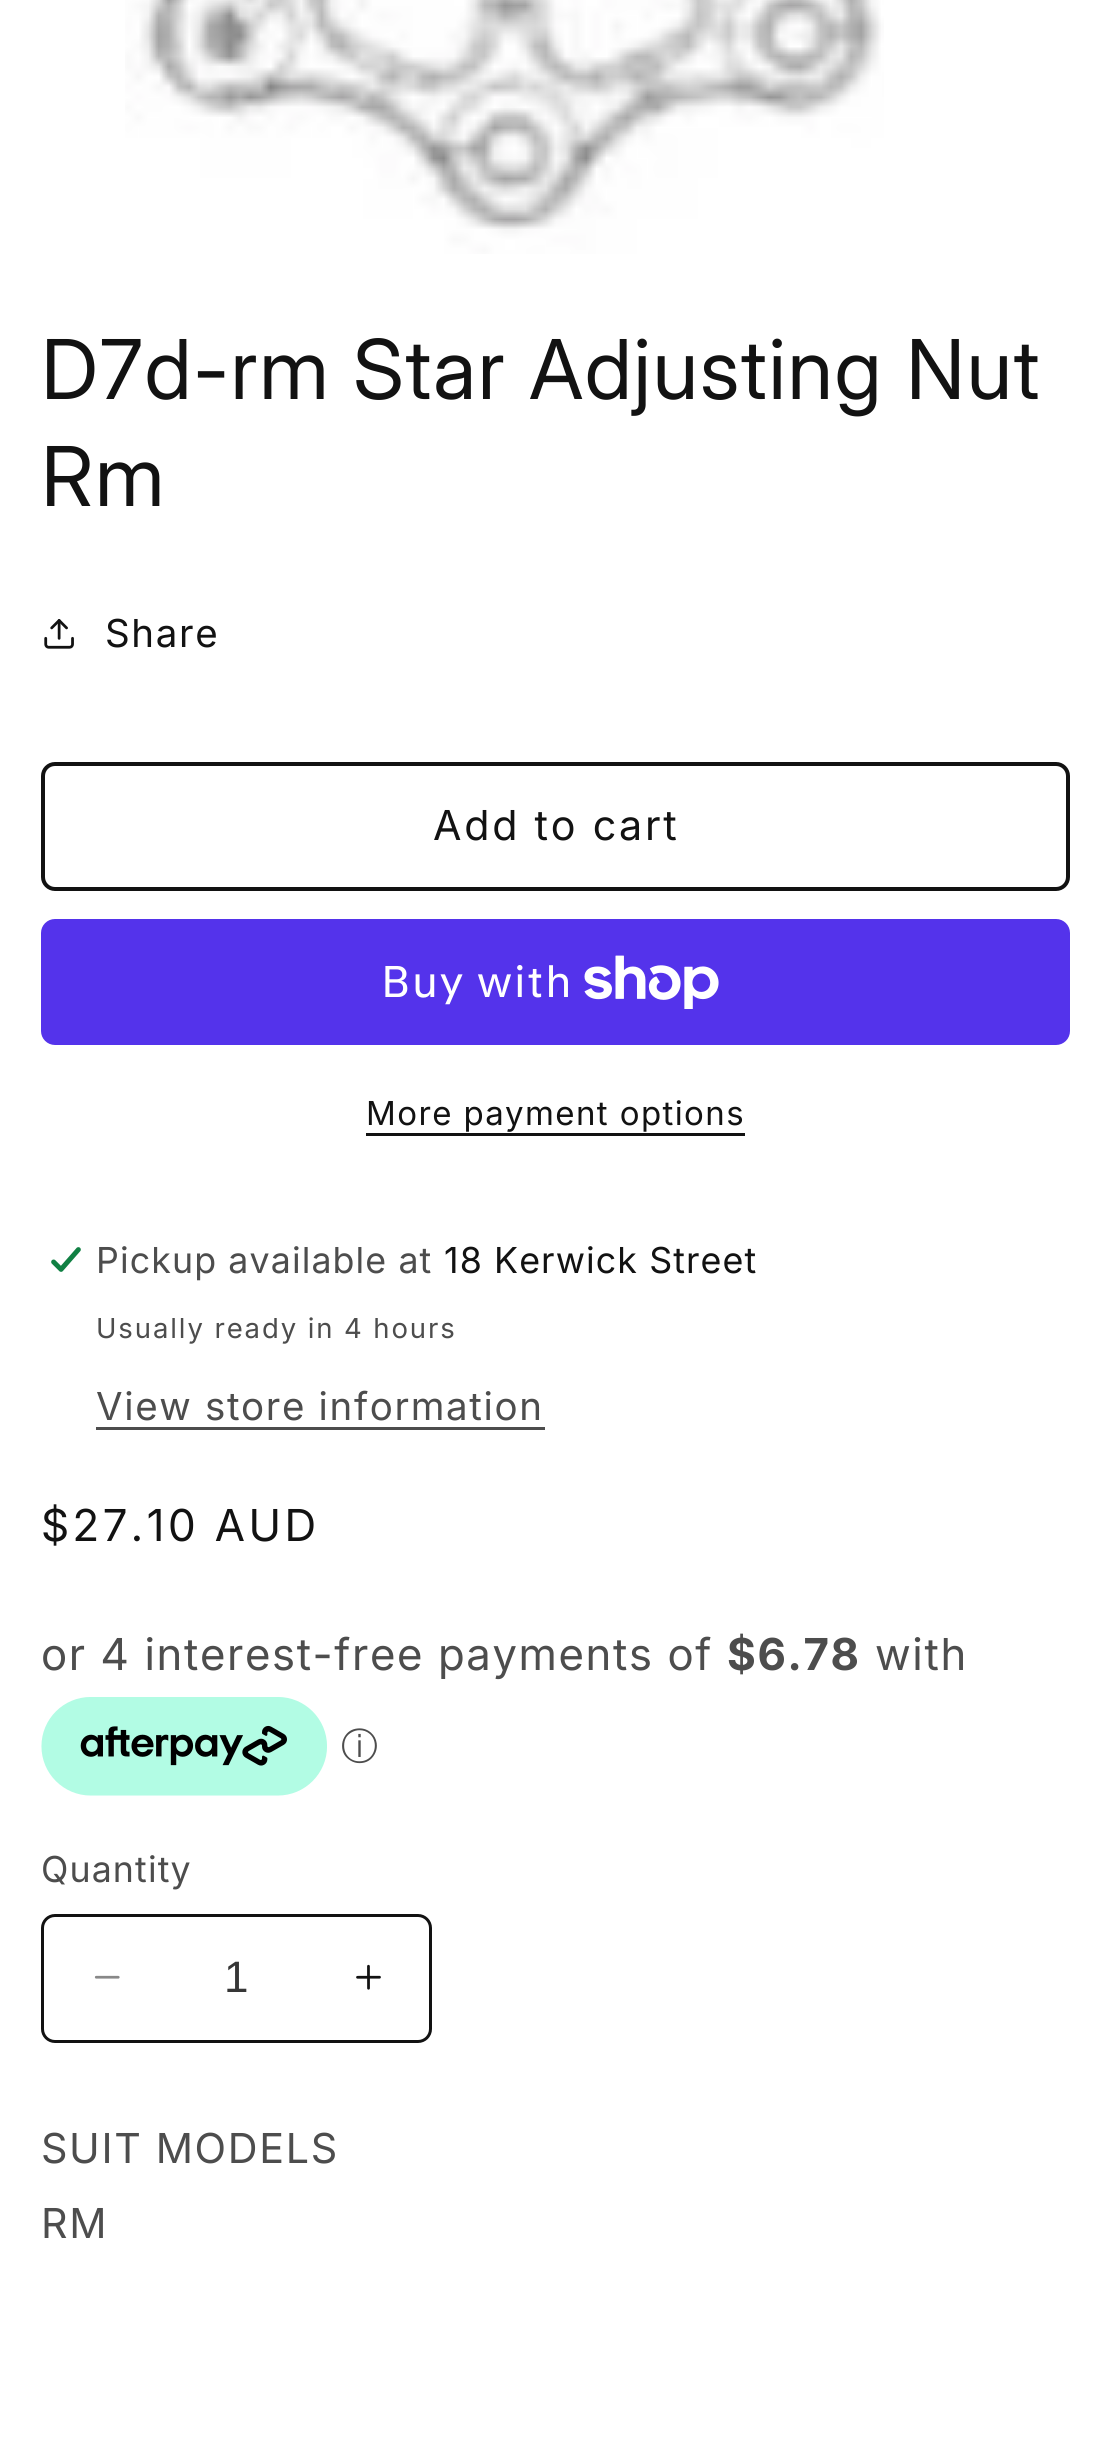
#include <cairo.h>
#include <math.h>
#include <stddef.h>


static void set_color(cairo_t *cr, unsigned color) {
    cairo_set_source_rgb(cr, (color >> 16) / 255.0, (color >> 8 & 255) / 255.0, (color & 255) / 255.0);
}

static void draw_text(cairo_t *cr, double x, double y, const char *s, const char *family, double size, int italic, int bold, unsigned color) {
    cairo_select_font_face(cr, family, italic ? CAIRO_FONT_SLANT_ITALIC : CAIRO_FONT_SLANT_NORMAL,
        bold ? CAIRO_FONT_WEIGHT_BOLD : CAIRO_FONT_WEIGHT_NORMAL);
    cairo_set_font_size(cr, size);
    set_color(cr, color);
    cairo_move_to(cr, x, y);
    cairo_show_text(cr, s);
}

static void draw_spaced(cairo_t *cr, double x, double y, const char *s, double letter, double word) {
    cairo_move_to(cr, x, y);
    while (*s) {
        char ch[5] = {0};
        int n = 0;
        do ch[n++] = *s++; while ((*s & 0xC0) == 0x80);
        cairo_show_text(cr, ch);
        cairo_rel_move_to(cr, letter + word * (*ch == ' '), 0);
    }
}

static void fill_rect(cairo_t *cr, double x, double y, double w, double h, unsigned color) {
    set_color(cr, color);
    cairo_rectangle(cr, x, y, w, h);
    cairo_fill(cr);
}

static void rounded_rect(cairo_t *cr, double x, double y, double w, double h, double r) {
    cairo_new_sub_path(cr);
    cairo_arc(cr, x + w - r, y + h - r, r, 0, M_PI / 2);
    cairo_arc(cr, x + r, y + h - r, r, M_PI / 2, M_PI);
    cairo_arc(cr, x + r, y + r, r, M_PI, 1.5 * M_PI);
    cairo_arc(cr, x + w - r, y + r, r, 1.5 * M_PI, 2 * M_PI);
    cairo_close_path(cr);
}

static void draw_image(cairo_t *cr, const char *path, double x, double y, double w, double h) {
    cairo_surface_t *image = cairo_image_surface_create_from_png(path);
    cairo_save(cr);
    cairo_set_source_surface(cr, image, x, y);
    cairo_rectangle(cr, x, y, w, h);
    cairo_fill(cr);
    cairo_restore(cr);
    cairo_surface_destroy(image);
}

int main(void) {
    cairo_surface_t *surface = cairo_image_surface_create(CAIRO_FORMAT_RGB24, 1109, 2459);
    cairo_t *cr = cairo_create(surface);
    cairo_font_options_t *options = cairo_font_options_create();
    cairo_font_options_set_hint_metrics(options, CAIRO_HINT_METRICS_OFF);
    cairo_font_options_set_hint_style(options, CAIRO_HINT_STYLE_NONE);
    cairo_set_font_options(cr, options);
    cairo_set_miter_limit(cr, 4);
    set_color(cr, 0xFFFFFF);
    cairo_paint(cr);
    draw_image(cr, "assets/img1.png", 125, 0, 759, 254);
    cairo_select_font_face(cr, "Inter", CAIRO_FONT_SLANT_NORMAL, CAIRO_FONT_WEIGHT_NORMAL);
    cairo_set_font_size(cr, 82.5);
    set_color(cr, 0x121212);
    draw_spaced(cr, 41, 399, "D7d-rm Star Adjusting Nut", 1.65, 0);
    draw_spaced(cr, 41, 506, "Rm", 1.65, 0);
    draw_image(cr, "assets/img2.png", 44, 619, 30, 30);
    cairo_select_font_face(cr, "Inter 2", CAIRO_FONT_SLANT_NORMAL, CAIRO_FONT_WEIGHT_NORMAL);
    cairo_set_font_size(cr, 38.5);
    draw_spaced(cr, 105, 647, "Share", 1.65, 0);
    rounded_rect(cr, 43, 764, 1025, 125, 12);
    cairo_set_line_width(cr, 4);
    cairo_stroke(cr);
    cairo_set_font_size(cr, 41.25);
    draw_spaced(cr, 433, 840, "Add to cart", 2.75, 0);
    set_color(cr, 0x5433EB);
    rounded_rect(cr, 41, 919, 1029, 126, 14);
    cairo_fill(cr);
    cairo_select_font_face(cr, "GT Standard", CAIRO_FONT_SLANT_NORMAL, CAIRO_FONT_WEIGHT_NORMAL);
    cairo_set_font_size(cr, 44);
    set_color(cr, 0xFFFFFF);
    draw_spaced(cr, 381, 997, "Buy with", 1.65, 0);
    draw_image(cr, "assets/img3.png", 584, 955, 135, 54);
    cairo_select_font_face(cr, "Inter 2", CAIRO_FONT_SLANT_NORMAL, CAIRO_FONT_WEIGHT_NORMAL);
    cairo_set_font_size(cr, 33);
    set_color(cr, 0x121212);
    draw_spaced(cr, 366, 1125, "More payment options", 1.4, 0);
    fill_rect(cr, 366, 1133, 379, 3, 0x121212);
    draw_image(cr, "assets/img4.png", 51, 1247, 30, 25);
    cairo_set_font_size(cr, 35.75);
    set_color(cr, 0x4D4D4D);
    draw_spaced(cr, 96, 1273, "Pickup available at", 1.1, 0);
    set_color(cr, 0x121212);
    draw_spaced(cr, 444, 1273, "18 Kerwick Street", 1.1, 0);
    cairo_set_font_size(cr, 27.5);
    set_color(cr, 0x4D4D4D);
    draw_spaced(cr, 96, 1338, "Usually ready in 4 hours", 1.9, 0);
    cairo_set_font_size(cr, 38.5);
    draw_spaced(cr, 96, 1420, "View store information", 1.65, 0);
    fill_rect(cr, 96, 1427, 449, 3, 0x4D4D4D);
    cairo_select_font_face(cr, "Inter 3", CAIRO_FONT_SLANT_NORMAL, CAIRO_FONT_WEIGHT_NORMAL);
    cairo_set_font_size(cr, 44);
    set_color(cr, 0x121212);
    draw_spaced(cr, 41, 1541, "$27.10 AUD", 3.5, 0);
    set_color(cr, 0x4D4D4D);
    draw_spaced(cr, 41, 1670, "or 4 interest-free payments of", 1.65, 0);
    cairo_select_font_face(cr, "Inter", CAIRO_FONT_SLANT_NORMAL, CAIRO_FONT_WEIGHT_BOLD);
    draw_spaced(cr, 727, 1670, "$6.78", 1.65, 0);
    cairo_select_font_face(cr, "Inter 3", CAIRO_FONT_SLANT_NORMAL, CAIRO_FONT_WEIGHT_NORMAL);
    draw_spaced(cr, 875, 1670, "with", 1.65, 0);
    draw_image(cr, "assets/img5.png", 41, 1697, 286, 99);
    draw_text(cr, 341, 1759, "ⓘ", "WenQuanYi Zen Hei Medium", 37, 0, 0, 0x4D4D4D);
    cairo_select_font_face(cr, "Inter 2", CAIRO_FONT_SLANT_NORMAL, CAIRO_FONT_WEIGHT_NORMAL);
    cairo_set_font_size(cr, 35.75);
    draw_spaced(cr, 41, 1882, "Quantity", 1.1, 0);
    draw_image(cr, "assets/img6.png", 94, 1975, 26, 4);
    draw_image(cr, "assets/img7.png", 356, 1964, 25, 26);
    rounded_rect(cr, 42.5, 1915.5, 388, 126, 12.5);
    set_color(cr, 0x121212);
    cairo_set_line_width(cr, 3);
    cairo_stroke(cr);
    draw_text(cr, 224, 1992, "1", "Liberation Sans", 44, 0, 0, 0x363636);
    cairo_select_font_face(cr, "Inter 2", CAIRO_FONT_SLANT_NORMAL, CAIRO_FONT_WEIGHT_NORMAL);
    cairo_set_font_size(cr, 41.25);
    set_color(cr, 0x4D4D4D);
    draw_spaced(cr, 41, 2163, "SUIT MODELS", 1.65, 0);
    draw_spaced(cr, 41, 2238, "RM", 1.65, 0);
    cairo_surface_write_to_png(surface, "output.png");
    cairo_font_options_destroy(options);
    cairo_destroy(cr);
    cairo_surface_destroy(surface);
    return 0;
}
